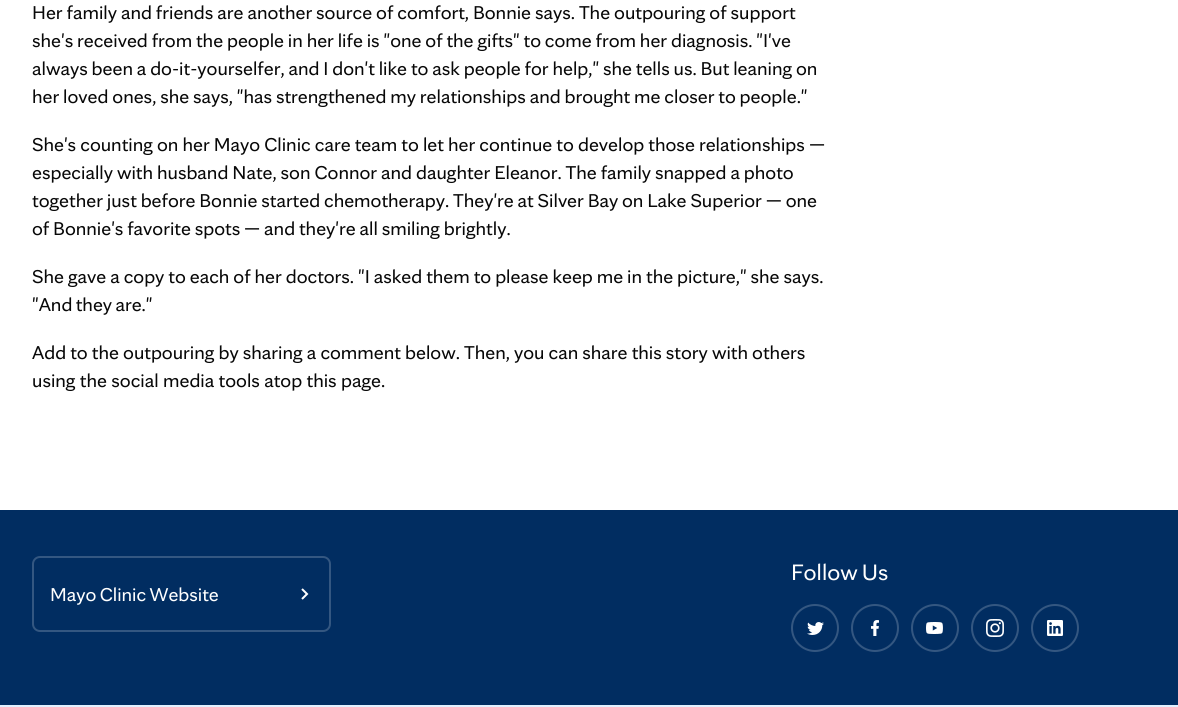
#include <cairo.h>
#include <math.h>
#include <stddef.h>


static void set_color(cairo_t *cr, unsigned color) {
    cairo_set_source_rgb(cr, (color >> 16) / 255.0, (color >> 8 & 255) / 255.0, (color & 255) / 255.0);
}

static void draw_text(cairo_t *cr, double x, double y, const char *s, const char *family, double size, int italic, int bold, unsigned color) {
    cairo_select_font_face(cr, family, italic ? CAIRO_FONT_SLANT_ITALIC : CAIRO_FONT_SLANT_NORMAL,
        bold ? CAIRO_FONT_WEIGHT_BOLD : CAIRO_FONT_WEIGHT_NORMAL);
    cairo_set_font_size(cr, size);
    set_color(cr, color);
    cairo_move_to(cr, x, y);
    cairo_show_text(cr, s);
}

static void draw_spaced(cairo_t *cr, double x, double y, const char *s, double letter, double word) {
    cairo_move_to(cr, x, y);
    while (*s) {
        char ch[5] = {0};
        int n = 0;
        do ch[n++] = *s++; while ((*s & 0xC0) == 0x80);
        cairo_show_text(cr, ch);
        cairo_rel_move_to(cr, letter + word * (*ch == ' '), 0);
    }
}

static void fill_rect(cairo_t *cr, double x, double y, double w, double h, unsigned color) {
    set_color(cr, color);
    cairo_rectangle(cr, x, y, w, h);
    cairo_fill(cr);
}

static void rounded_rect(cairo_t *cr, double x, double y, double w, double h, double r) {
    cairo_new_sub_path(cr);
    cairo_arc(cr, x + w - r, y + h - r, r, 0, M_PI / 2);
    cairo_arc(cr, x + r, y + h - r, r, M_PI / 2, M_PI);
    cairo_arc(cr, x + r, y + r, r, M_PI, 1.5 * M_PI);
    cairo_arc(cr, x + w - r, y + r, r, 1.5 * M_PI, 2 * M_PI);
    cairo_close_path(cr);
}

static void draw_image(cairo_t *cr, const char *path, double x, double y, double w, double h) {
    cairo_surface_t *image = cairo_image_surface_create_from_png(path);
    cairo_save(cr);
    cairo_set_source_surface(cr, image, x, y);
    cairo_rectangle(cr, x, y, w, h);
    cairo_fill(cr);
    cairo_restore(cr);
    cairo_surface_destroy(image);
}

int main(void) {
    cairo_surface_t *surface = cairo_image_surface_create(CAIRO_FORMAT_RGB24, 1178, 707);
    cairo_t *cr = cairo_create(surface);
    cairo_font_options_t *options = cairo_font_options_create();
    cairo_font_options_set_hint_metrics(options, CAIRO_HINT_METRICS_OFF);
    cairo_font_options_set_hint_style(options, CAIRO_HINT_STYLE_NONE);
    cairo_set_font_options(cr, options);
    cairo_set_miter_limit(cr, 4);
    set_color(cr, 0xFFFFFF);
    cairo_paint(cr);
    cairo_select_font_face(cr, "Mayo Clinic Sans", CAIRO_FONT_SLANT_NORMAL, CAIRO_FONT_WEIGHT_NORMAL);
    cairo_set_font_size(cr, 20);
    set_color(cr, 0x080808);
    draw_spaced(cr, 32, 19, "Her family and friends are another source of comfort, Bonnie says. The outpouring of support", 0, -0.4);
    draw_spaced(cr, 32, 47, "she's received from the people in her life is \"one of the gifts\" to come from her diagnosis. \"I've", 0, -0.5);
    draw_spaced(cr, 32, 75, "always been a do-it-yourselfer, and I don't like to ask people for help,\" she tells us. But leaning on", 0, -0.5);
    draw_spaced(cr, 32, 103, "her loved ones, she says, \"has strengthened my relationships and brought me closer to people.\"", 0, -0.5);
    draw_spaced(cr, 32, 151, "She's counting on her Mayo Clinic care team to let her continue to develop those relationships —", 0, -0.25);
    draw_spaced(cr, 32, 179, "especially with husband Nate, son Connor and daughter Eleanor. The family snapped a photo", 0, -0.4);
    draw_spaced(cr, 32, 207, "together just before Bonnie started chemotherapy. They're at Silver Bay on Lake Superior — one", 0, -0.5);
    draw_spaced(cr, 32, 235, "of Bonnie's favorite spots — and they're all smiling brightly.", 0, -0.5);
    draw_spaced(cr, 32, 283, "She gave a copy to each of her doctors. \"I asked them to please keep me in the picture,\" she says.", 0, -0.4);
    draw_spaced(cr, 32, 311, "\"And they are.\"", 0, -1);
    draw_spaced(cr, 32, 359, "Add to the outpouring by sharing a comment below. Then, you can share this story with others", 0, -0.25);
    draw_text(cr, 32, 387, "using the social media tools atop this page.", "Mayo Clinic Sans", 20, 0, 0, 0x080808);
    fill_rect(cr, 0, 510, 1178, 195, 0x012D61);
    cairo_set_font_size(cr, 24);
    set_color(cr, 0xFFFFFF);
    draw_spaced(cr, 791, 580, "Follow Us", 0, -1);
    cairo_new_path(cr);
    cairo_arc(cr, 815, 628, 23, 0, 2 * M_PI);
    set_color(cr, 0x345781);
    cairo_stroke(cr);
    draw_image(cr, "assets/img1.png", 807, 622, 17, 13);
    cairo_arc(cr, 875, 628, 23, 0, 2 * M_PI);
    cairo_stroke(cr);
    draw_image(cr, "assets/img2.png", 871, 620, 8, 16);
    cairo_arc(cr, 935, 628, 23, 0, 2 * M_PI);
    cairo_stroke(cr);
    draw_image(cr, "assets/img3.png", 926, 622, 17, 12);
    cairo_arc(cr, 995, 628, 23, 0, 2 * M_PI);
    cairo_stroke(cr);
    draw_image(cr, "assets/img4.png", 986, 619, 18, 18);
    cairo_arc(cr, 1055, 628, 23, 0, 2 * M_PI);
    cairo_stroke(cr);
    draw_image(cr, "assets/img5.png", 1047, 620, 16, 16);
    rounded_rect(cr, 33, 557, 297, 74, 7);
    cairo_stroke(cr);
    cairo_set_font_size(cr, 20);
    set_color(cr, 0xFFFFFF);
    draw_spaced(cr, 50, 601, "Mayo Clinic Website", 0, -1);
    draw_image(cr, "assets/img6.png", 301, 588, 8, 12);
    fill_rect(cr, 0, 705, 1178, 2, 0xE1F0FF);
    cairo_surface_write_to_png(surface, "output.png");
    cairo_font_options_destroy(options);
    cairo_destroy(cr);
    cairo_surface_destroy(surface);
    return 0;
}
